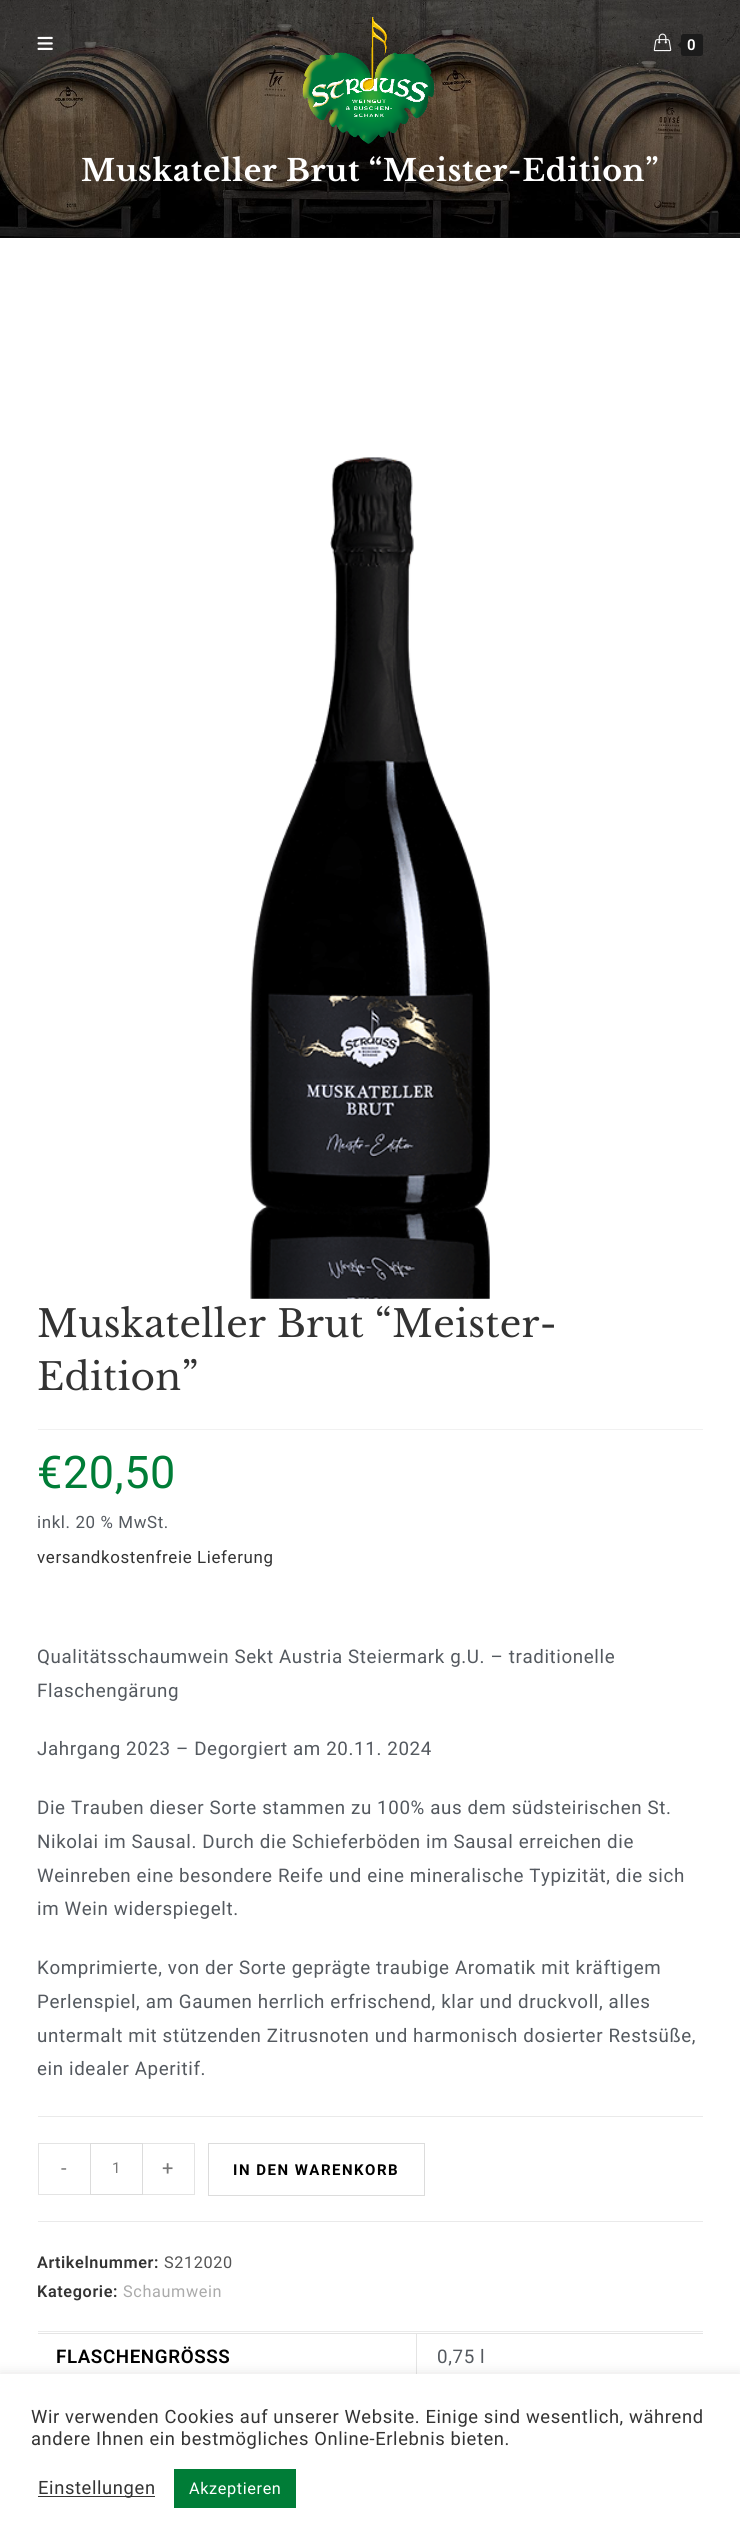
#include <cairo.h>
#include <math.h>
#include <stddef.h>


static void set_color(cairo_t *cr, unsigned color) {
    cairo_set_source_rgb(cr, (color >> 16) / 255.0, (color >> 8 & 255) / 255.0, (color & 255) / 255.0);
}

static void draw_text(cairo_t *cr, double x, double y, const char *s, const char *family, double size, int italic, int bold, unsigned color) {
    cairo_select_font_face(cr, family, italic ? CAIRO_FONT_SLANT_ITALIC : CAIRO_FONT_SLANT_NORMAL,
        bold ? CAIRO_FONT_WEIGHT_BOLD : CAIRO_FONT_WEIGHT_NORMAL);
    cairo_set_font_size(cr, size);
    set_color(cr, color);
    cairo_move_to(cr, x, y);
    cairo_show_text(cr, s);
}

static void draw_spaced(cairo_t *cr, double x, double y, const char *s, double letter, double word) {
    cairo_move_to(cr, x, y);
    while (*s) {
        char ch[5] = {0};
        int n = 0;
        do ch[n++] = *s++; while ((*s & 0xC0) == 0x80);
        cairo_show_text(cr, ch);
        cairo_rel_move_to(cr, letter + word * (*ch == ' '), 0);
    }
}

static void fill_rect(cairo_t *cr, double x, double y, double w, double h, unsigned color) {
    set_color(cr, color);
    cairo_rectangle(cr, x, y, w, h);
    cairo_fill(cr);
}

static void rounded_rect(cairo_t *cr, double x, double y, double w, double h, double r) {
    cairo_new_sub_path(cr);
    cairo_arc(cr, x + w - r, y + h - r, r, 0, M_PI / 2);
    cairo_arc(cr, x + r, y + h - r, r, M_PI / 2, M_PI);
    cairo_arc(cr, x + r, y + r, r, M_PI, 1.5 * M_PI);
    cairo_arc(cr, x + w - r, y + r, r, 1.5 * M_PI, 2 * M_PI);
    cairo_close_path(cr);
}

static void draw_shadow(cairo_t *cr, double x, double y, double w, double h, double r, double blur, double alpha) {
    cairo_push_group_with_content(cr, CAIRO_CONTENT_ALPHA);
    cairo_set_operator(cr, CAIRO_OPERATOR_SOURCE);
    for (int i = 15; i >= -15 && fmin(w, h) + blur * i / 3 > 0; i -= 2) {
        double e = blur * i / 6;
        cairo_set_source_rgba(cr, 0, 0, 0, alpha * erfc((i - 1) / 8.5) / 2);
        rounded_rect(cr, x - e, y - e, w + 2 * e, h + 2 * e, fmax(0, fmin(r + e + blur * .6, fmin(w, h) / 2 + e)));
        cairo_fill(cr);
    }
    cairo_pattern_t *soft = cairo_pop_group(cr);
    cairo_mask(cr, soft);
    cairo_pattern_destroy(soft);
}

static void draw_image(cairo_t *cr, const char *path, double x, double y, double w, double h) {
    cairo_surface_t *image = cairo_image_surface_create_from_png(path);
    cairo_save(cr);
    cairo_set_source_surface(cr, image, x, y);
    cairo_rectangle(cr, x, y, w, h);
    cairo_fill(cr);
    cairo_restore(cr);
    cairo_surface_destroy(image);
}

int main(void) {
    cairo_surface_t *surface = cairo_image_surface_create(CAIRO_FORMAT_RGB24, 740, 2545);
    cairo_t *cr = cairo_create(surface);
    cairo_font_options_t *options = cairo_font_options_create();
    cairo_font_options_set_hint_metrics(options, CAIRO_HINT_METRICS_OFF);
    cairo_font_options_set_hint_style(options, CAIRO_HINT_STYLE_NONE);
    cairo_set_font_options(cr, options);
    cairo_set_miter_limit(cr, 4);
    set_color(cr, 0xFFFFFF);
    cairo_paint(cr);
    fill_rect(cr, 0, 237, 740, 1, 0x0E0E0E);
    draw_image(cr, "assets/img4.png", 0, 0, 740, 238);
    draw_image(cr, "assets/img1.png", 37, 36, 16, 14);
    draw_image(cr, "assets/img2.png", 302, 17, 133, 127);
    draw_image(cr, "assets/img3.png", 653, 33, 19, 19);
    set_color(cr, 0x1B1B1B);
    rounded_rect(cr, 681, 34, 22, 22, 2.5);
    cairo_fill(cr);
    cairo_new_path(cr);
    cairo_move_to(cr, 684, 39);
    cairo_line_to(cr, 684, 51);
    cairo_line_to(cr, 677.5, 45);
    cairo_close_path(cr);
    cairo_fill(cr);
    cairo_select_font_face(cr, "Roboto SemiBold", CAIRO_FONT_SLANT_NORMAL, CAIRO_FONT_WEIGHT_NORMAL);
    cairo_set_font_size(cr, 15);
    set_color(cr, 0xFFFFFF);
    draw_spaced(cr, 687, 50, "0", 1, 0);
    cairo_select_font_face(cr, "Libre Baskerville", CAIRO_FONT_SLANT_NORMAL, CAIRO_FONT_WEIGHT_BOLD);
    cairo_set_font_size(cr, 30);
    draw_spaced(cr, 81, 181, "Muskateller Brut “Meister-Edition”", 0.62, 0);
    draw_image(cr, "assets/img5.png", 250, 457, 240, 842);
    fill_rect(cr, 38, 1429, 665, 1, 0xF1F1F1);
    cairo_select_font_face(cr, "Libre Baskerville", CAIRO_FONT_SLANT_NORMAL, CAIRO_FONT_WEIGHT_NORMAL);
    cairo_set_font_size(cr, 37.5);
    set_color(cr, 0x333333);
    draw_spaced(cr, 37, 1337, "Muskateller Brut “Meister-", 0.25, 0);
    draw_spaced(cr, 37, 1390, "Edition”", 0.25, 0);
    cairo_select_font_face(cr, "Roboto", CAIRO_FONT_SLANT_NORMAL, CAIRO_FONT_WEIGHT_NORMAL);
    cairo_set_font_size(cr, 45);
    set_color(cr, 0x007D37);
    draw_spaced(cr, 37, 1488, "€20,50", 0.62, 0);
    cairo_set_font_size(cr, 16.9);
    set_color(cr, 0x54595F);
    draw_spaced(cr, 37, 1528, "inkl. 20 % MwSt.", 0.62, 0);
    set_color(cr, 0x333333);
    draw_spaced(cr, 37, 1563, "versandkostenfreie Lieferung", 0.62, 0);
    cairo_set_font_size(cr, 18.75);
    set_color(cr, 0x54595F);
    draw_spaced(cr, 37, 1663, "Qualitätsschaumwein Sekt Austria Steiermark g.U. – traditionelle", 0.62, 0);
    draw_spaced(cr, 37, 1697, "Flaschengärung", 0.62, 0);
    draw_spaced(cr, 37, 1755, "Jahrgang 2023 – Degorgiert am 20.11. 2024", 0.62, 0);
    draw_spaced(cr, 37, 1814, "Die Trauben dieser Sorte stammen zu 100% aus dem südsteirischen St.", 0.62, 0);
    draw_spaced(cr, 37, 1848, "Nikolai im Sausal. Durch die Schieferböden im Sausal erreichen die", 0.62, 0);
    draw_spaced(cr, 37, 1882, "Weinreben eine besondere Reife und eine mineralische Typizität, die sich", 0.62, 0);
    draw_spaced(cr, 37, 1915, "im Wein widerspiegelt.", 0.62, 0);
    draw_spaced(cr, 37, 1974, "Komprimierte, von der Sorte geprägte traubige Aromatik mit kräftigem", 0.62, 0);
    draw_spaced(cr, 37, 2008, "Perlenspiel, am Gaumen herrlich erfrischend, klar und druckvoll, alles", 0.62, 0);
    draw_spaced(cr, 37, 2042, "untermalt mit stützenden Zitrusnoten und harmonisch dosierter Restsüße,", 0.62, 0);
    draw_spaced(cr, 37, 2075, "ein idealer Aperitif.", 0.62, 0);
    fill_rect(cr, 38, 2116, 665, 1, 0xEAEAEA);
    fill_rect(cr, 38, 2221, 665, 1, 0xEAEAEA);
    fill_rect(cr, 38, 2143, 52, 1, 0xE4E4E4);
    fill_rect(cr, 38, 2194, 52, 1, 0xE4E4E4);
    fill_rect(cr, 38, 2143, 1, 52, 0xE4E4E4);
    cairo_set_font_size(cr, 20);
    set_color(cr, 0x777777);
    draw_spaced(cr, 61, 2175, "-", 0.62, 0);
    cairo_rectangle(cr, 90.5, 2143.5, 52, 51);
    set_color(cr, 0xDCDCDC);
    cairo_set_line_width(cr, 1);
    cairo_stroke(cr);
    draw_text(cr, 112, 2173, "1", "Roboto", 15, 0, 0, 0x777777);
    fill_rect(cr, 143, 2143, 52, 1, 0xE4E4E4);
    fill_rect(cr, 194, 2143, 1, 52, 0xE4E4E4);
    fill_rect(cr, 143, 2194, 52, 1, 0xE4E4E4);
    cairo_set_font_size(cr, 20);
    set_color(cr, 0x777777);
    draw_spaced(cr, 162, 2175, "+", 0.62, 0);
    cairo_rectangle(cr, 208.5, 2143.5, 216, 52);
    set_color(cr, 0xDCDCDC);
    cairo_stroke(cr);
    cairo_select_font_face(cr, "Roboto", CAIRO_FONT_SLANT_NORMAL, CAIRO_FONT_WEIGHT_BOLD);
    cairo_set_font_size(cr, 15);
    set_color(cr, 0x000000);
    draw_spaced(cr, 233, 2175, "IN DEN WARENKORB", 1.5, 0);
    fill_rect(cr, 38, 2331, 665, 1, 0xEAEAEA);
    cairo_select_font_face(cr, "Roboto SemiBold", CAIRO_FONT_SLANT_NORMAL, CAIRO_FONT_WEIGHT_NORMAL);
    cairo_set_font_size(cr, 16.25);
    set_color(cr, 0x333333);
    draw_spaced(cr, 37, 2268, "Artikelnummer:", 0.62, 0);
    cairo_select_font_face(cr, "Roboto", CAIRO_FONT_SLANT_NORMAL, CAIRO_FONT_WEIGHT_NORMAL);
    set_color(cr, 0x555555);
    draw_spaced(cr, 164, 2268, "S212020", 0.62, 0);
    cairo_select_font_face(cr, "Roboto SemiBold", CAIRO_FONT_SLANT_NORMAL, CAIRO_FONT_WEIGHT_NORMAL);
    set_color(cr, 0x333333);
    draw_spaced(cr, 37, 2297, "Kategorie:", 0.62, 0);
    cairo_select_font_face(cr, "Roboto", CAIRO_FONT_SLANT_NORMAL, CAIRO_FONT_WEIGHT_NORMAL);
    set_color(cr, 0xABABAB);
    draw_spaced(cr, 123, 2297, "Schaumwein", 0.62, 0);
    fill_rect(cr, 38, 2333, 665, 1, 0xE4E4E4);
    fill_rect(cr, 416, 2333, 1, 48, 0xE4E4E4);
    cairo_select_font_face(cr, "Roboto SemiBold", CAIRO_FONT_SLANT_NORMAL, CAIRO_FONT_WEIGHT_NORMAL);
    cairo_set_font_size(cr, 18.75);
    set_color(cr, 0x000000);
    draw_spaced(cr, 56, 2363, "FLASCHENGRÖSSS", 0.62, 0);
    cairo_select_font_face(cr, "Roboto", CAIRO_FONT_SLANT_NORMAL, CAIRO_FONT_WEIGHT_NORMAL);
    set_color(cr, 0x54595F);
    draw_spaced(cr, 437, 2363, "0,75 l", 0.62, 0);
    set_color(cr, 0xACABAB);
    draw_shadow(cr, 0, 2373, 740, 171, 0, 6, 0.3);
    fill_rect(cr, 0, 2374, 740, 171, 0xFFFFFF);
    cairo_set_font_size(cr, 18.35);
    set_color(cr, 0x333333);
    draw_spaced(cr, 31, 2423, "Wir verwenden Cookies auf unserer Website. Einige sind wesentlich, während", 0.62, 0);
    draw_spaced(cr, 31, 2445, "andere Ihnen ein bestmögliches Online-Erlebnis bieten.", 0.62, 0);
    fill_rect(cr, 38, 2496, 117, 1, 0x333333);
    draw_spaced(cr, 38, 2494, "Einstellungen", 0.62, 0);
    fill_rect(cr, 174, 2469, 122, 39, 0x007D37);
    cairo_set_font_size(cr, 16.25);
    set_color(cr, 0xFFFFFF);
    draw_spaced(cr, 189, 2494, "Akzeptieren", 0.62, 0);
    cairo_surface_write_to_png(surface, "output.png");
    cairo_font_options_destroy(options);
    cairo_destroy(cr);
    cairo_surface_destroy(surface);
    return 0;
}
